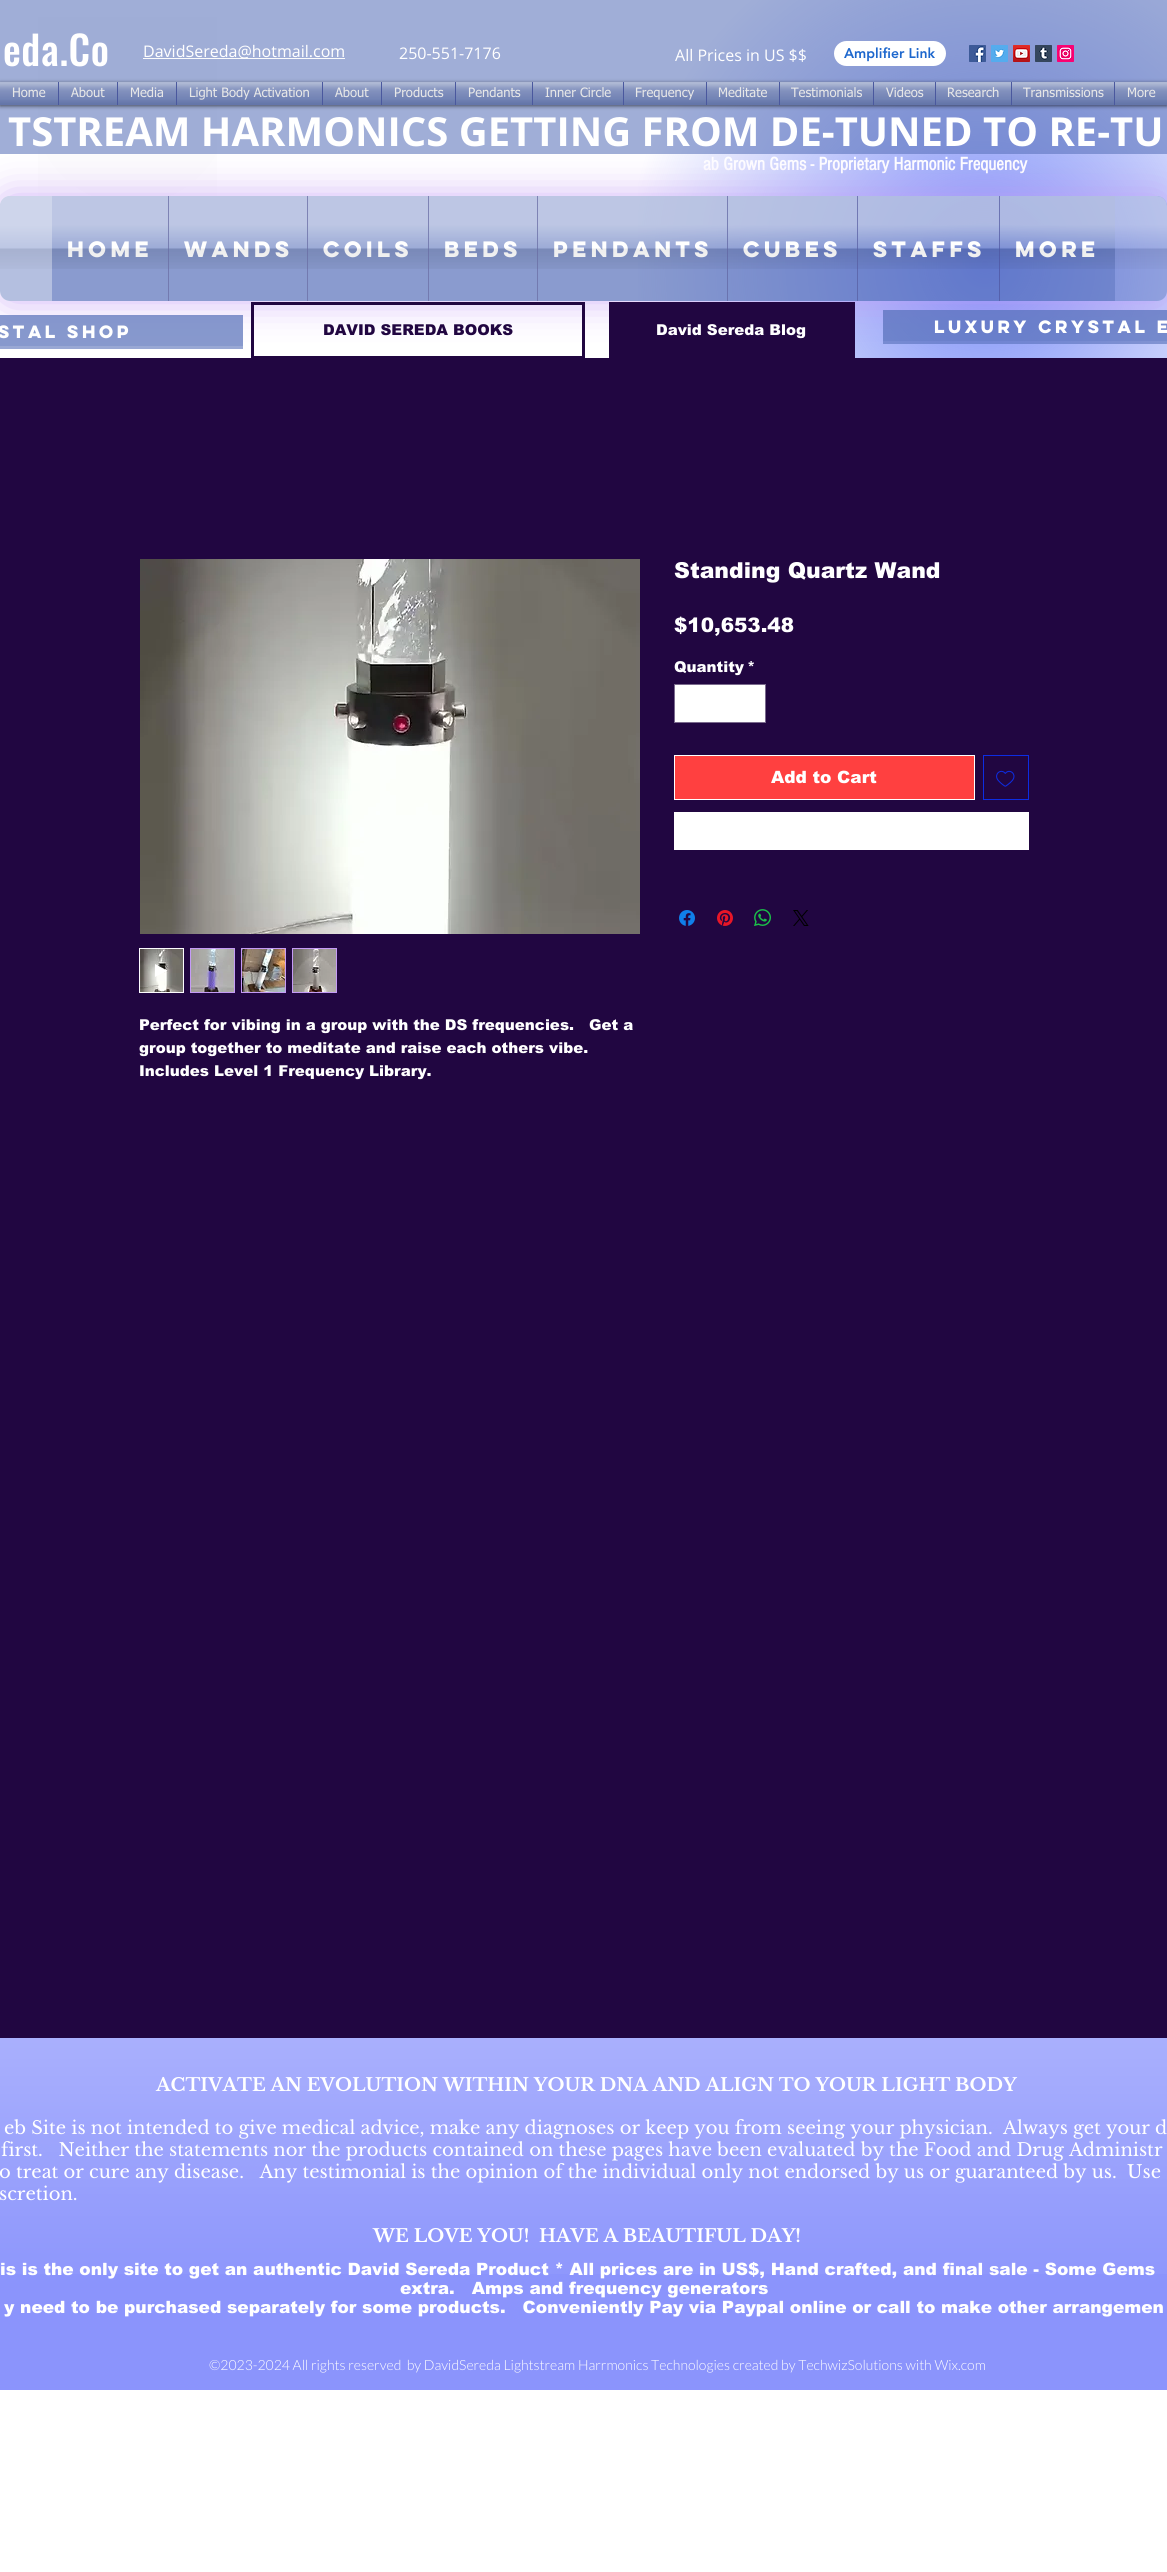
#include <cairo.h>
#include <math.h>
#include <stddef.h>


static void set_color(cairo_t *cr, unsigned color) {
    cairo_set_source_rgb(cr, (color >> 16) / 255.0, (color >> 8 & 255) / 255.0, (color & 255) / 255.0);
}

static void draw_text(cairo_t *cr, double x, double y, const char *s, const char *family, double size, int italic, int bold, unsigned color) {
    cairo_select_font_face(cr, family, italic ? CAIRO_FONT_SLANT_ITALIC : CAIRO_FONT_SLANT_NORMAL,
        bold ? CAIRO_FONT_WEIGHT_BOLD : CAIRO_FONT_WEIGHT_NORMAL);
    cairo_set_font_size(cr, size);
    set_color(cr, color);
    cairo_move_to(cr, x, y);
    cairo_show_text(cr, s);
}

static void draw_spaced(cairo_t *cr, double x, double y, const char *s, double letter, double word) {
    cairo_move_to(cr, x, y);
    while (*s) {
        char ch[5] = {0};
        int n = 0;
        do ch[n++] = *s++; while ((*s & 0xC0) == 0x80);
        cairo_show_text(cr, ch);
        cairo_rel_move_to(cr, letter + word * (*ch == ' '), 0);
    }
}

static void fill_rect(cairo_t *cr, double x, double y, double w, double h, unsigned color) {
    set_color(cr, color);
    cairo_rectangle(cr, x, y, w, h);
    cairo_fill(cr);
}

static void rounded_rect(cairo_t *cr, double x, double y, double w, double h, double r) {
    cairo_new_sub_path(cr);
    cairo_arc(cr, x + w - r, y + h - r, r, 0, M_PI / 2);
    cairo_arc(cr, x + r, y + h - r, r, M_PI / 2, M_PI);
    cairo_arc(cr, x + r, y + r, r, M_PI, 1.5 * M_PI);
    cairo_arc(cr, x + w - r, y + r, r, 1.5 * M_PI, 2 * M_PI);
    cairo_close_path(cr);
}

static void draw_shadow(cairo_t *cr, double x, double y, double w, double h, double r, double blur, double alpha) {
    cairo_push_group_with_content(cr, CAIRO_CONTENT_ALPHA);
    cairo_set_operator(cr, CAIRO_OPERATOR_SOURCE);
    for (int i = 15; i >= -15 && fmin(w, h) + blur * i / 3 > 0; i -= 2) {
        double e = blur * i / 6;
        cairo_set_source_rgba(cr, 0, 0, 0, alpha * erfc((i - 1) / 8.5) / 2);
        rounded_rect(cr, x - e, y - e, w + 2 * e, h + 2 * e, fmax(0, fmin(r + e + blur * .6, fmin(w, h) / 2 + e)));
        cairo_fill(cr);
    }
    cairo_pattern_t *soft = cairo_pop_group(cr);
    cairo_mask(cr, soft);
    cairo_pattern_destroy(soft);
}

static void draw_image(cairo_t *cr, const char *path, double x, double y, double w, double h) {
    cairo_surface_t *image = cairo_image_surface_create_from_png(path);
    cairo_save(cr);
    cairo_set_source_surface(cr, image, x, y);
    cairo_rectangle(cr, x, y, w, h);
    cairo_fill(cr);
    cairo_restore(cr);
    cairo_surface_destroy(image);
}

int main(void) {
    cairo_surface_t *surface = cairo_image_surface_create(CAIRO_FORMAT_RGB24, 1167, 2572);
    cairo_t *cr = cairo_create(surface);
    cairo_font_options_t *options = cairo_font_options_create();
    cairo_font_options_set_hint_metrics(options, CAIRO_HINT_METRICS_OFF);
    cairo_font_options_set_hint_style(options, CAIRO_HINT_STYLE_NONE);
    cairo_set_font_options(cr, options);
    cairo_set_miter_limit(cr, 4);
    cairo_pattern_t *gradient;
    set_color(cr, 0xFFFFFF);
    cairo_paint(cr);
    gradient = cairo_pattern_create_radial(131, 107, 0, 131, 107, 1066);
    cairo_pattern_add_color_stop_rgba(gradient, 0, 0.988, 0.988, 0.988, 1);
    cairo_pattern_add_color_stop_rgba(gradient, 0.5, 1, 1, 1, 1);
    cairo_set_source(cr, gradient);
    cairo_pattern_destroy(gradient);
    cairo_rectangle(cr, 38, 17, 179, 179);
    cairo_fill(cr);
    gradient = cairo_pattern_create_radial(985, 264, 0, 985, 264, 1020);
    cairo_pattern_add_color_stop_rgba(gradient, 0, 0.333, 0.427, 0.961, 0.77);
    cairo_pattern_add_color_stop_rgba(gradient, 0.35, 0.333, 0.427, 0.961, 0);
    cairo_set_source(cr, gradient);
    cairo_pattern_destroy(gradient);
    cairo_rectangle(cr, 638, 0, 529, 358);
    cairo_fill(cr);
    cairo_set_source_rgba(cr, 0.337, 0.435, 0.722, 0.56);
    cairo_rectangle(cr, 0, 0, 1167, 154);
    cairo_fill(cr);
    cairo_select_font_face(cr, "Oswald Medium", CAIRO_FONT_SLANT_NORMAL, CAIRO_FONT_WEIGHT_NORMAL);
    cairo_set_font_size(cr, 40);
    set_color(cr, 0xFFFFFF);
    draw_spaced(cr, 3, 66, "eda.Co", 0.5, 0);
    fill_rect(cr, 143, 58, 202, 1, 0xFBFBFB);
    draw_text(cr, 143, 57, "DavidSereda@hotmail.com", "Open Sans", 16, 0, 0, 0xFFFFFF);
    draw_text(cr, 399, 59, "250-551-7176", "Open Sans", 16, 0, 0, 0xFFFFFF);
    draw_text(cr, 675, 61, "All Prices in US $$", "Open Sans", 16, 0, 0, 0xFFFFFF);
    rounded_rect(cr, 834, 41, 112, 25, 12.5);
    cairo_fill(cr);
    draw_text(cr, 844, 58, "Amplifier Link", "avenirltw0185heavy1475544 Black", 14, 0, 0, 0x1D67CD);
    draw_image(cr, "assets/img1.png", 969, 45, 17, 17);
    draw_image(cr, "assets/img2.png", 991, 45, 17, 17);
    draw_image(cr, "assets/img3.png", 1013, 45, 17, 17);
    draw_image(cr, "assets/img4.png", 1035, 45, 17, 17);
    draw_image(cr, "assets/img5.png", 1057, 45, 17, 17);
    set_color(cr, 0x000000);
    draw_shadow(cr, 0, 83, 1167, 23, 0, 2, 0.6);
    fill_rect(cr, 0, 82, 58, 23, 0x566FB8);
    draw_text(cr, 12, 97, "Home", "tahoma", 13, 0, 0, 0xFFFFFF);
    draw_image(cr, "assets/img6.png", 0, 82, 58, 23);
    draw_image(cr, "assets/img7.png", 0, 82, 58, 23);
    fill_rect(cr, 59, 82, 58, 23, 0x566FB8);
    fill_rect(cr, 58, 82, 1, 23, 0x4A589E);
    draw_text(cr, 71, 97, "About", "tahoma", 13, 0, 0, 0xFFFFFF);
    draw_image(cr, "assets/img8.png", 59, 82, 58, 23);
    draw_image(cr, "assets/img9.png", 59, 82, 58, 23);
    fill_rect(cr, 118, 82, 58, 23, 0x566FB8);
    fill_rect(cr, 117, 82, 1, 23, 0x4A589E);
    draw_text(cr, 130, 97, "Media", "tahoma", 13, 0, 0, 0xFFFFFF);
    draw_image(cr, "assets/img10.png", 118, 82, 58, 23);
    draw_image(cr, "assets/img11.png", 118, 82, 58, 23);
    fill_rect(cr, 177, 82, 145, 23, 0x566FB8);
    fill_rect(cr, 176, 82, 1, 23, 0x4A589E);
    draw_text(cr, 189, 97, "Light Body Activation", "tahoma", 13, 0, 0, 0xFFFFFF);
    draw_image(cr, "assets/img12.png", 177, 82, 145, 23);
    draw_image(cr, "assets/img13.png", 177, 82, 145, 23);
    fill_rect(cr, 323, 82, 58, 23, 0x566FB8);
    fill_rect(cr, 322, 82, 1, 23, 0x4A589E);
    draw_text(cr, 335, 97, "About", "tahoma", 13, 0, 0, 0xFFFFFF);
    draw_image(cr, "assets/img8.png", 323, 82, 58, 23);
    draw_image(cr, "assets/img9.png", 323, 82, 58, 23);
    fill_rect(cr, 382, 82, 73, 23, 0x566FB8);
    fill_rect(cr, 381, 82, 1, 23, 0x4A589E);
    draw_text(cr, 394, 97, "Products", "tahoma", 13, 0, 0, 0xFFFFFF);
    draw_image(cr, "assets/img14.png", 382, 82, 73, 23);
    draw_image(cr, "assets/img15.png", 382, 82, 73, 23);
    fill_rect(cr, 456, 82, 76, 23, 0x566FB8);
    fill_rect(cr, 455, 82, 1, 23, 0x4A589E);
    draw_text(cr, 468, 97, "Pendants", "tahoma", 13, 0, 0, 0xFFFFFF);
    draw_image(cr, "assets/img16.png", 456, 82, 76, 23);
    draw_image(cr, "assets/img17.png", 456, 82, 76, 23);
    fill_rect(cr, 533, 82, 90, 23, 0x566FB8);
    fill_rect(cr, 532, 82, 1, 23, 0x4A589E);
    draw_text(cr, 545, 97, "Inner Circle", "tahoma", 13, 0, 0, 0xFFFFFF);
    draw_image(cr, "assets/img18.png", 533, 82, 90, 23);
    draw_image(cr, "assets/img19.png", 533, 82, 90, 23);
    fill_rect(cr, 624, 82, 82, 23, 0x566FB8);
    fill_rect(cr, 623, 82, 1, 23, 0x4A589E);
    draw_text(cr, 635, 97, "Frequency", "tahoma", 13, 0, 0, 0xFFFFFF);
    draw_image(cr, "assets/img20.png", 624, 82, 82, 23);
    draw_image(cr, "assets/img21.png", 624, 82, 82, 23);
    fill_rect(cr, 707, 82, 72, 23, 0x566FB8);
    fill_rect(cr, 706, 82, 1, 23, 0x4A589E);
    draw_text(cr, 718, 97, "Meditate", "tahoma", 13, 0, 0, 0xFFFFFF);
    draw_image(cr, "assets/img22.png", 707, 82, 72, 23);
    draw_image(cr, "assets/img23.png", 707, 82, 72, 23);
    fill_rect(cr, 780, 82, 93, 23, 0x566FB8);
    fill_rect(cr, 779, 82, 1, 23, 0x4A589E);
    draw_text(cr, 791, 97, "Testimonials", "tahoma", 13, 0, 0, 0xFFFFFF);
    draw_image(cr, "assets/img24.png", 780, 82, 93, 23);
    draw_image(cr, "assets/img25.png", 780, 82, 93, 23);
    fill_rect(cr, 874, 82, 61, 23, 0x566FB8);
    fill_rect(cr, 873, 82, 1, 23, 0x4A589E);
    draw_text(cr, 886, 97, "Videos", "tahoma", 13, 0, 0, 0xFFFFFF);
    draw_image(cr, "assets/img26.png", 874, 82, 61, 23);
    draw_image(cr, "assets/img27.png", 874, 82, 61, 23);
    fill_rect(cr, 936, 82, 75, 23, 0x566FB8);
    fill_rect(cr, 935, 82, 1, 23, 0x4A589E);
    draw_text(cr, 947, 97, "Research", "tahoma", 13, 0, 0, 0xFFFFFF);
    draw_image(cr, "assets/img28.png", 936, 82, 75, 23);
    draw_image(cr, "assets/img29.png", 936, 82, 75, 23);
    fill_rect(cr, 1012, 82, 102, 23, 0x566FB8);
    fill_rect(cr, 1011, 82, 1, 23, 0x4A589E);
    draw_text(cr, 1023, 97, "Transmissions", "tahoma", 13, 0, 0, 0xFFFFFF);
    draw_image(cr, "assets/img30.png", 1012, 82, 102, 23);
    draw_image(cr, "assets/img31.png", 1012, 82, 102, 23);
    fill_rect(cr, 1115, 82, 52, 23, 0x566FB8);
    fill_rect(cr, 1114, 82, 1, 23, 0x4A589E);
    draw_text(cr, 1127, 97, "More", "tahoma", 13, 0, 0, 0xFFFFFF);
    draw_image(cr, "assets/img32.png", 1115, 82, 52, 23);
    draw_image(cr, "assets/img33.png", 1115, 82, 52, 23);
    draw_text(cr, 8, 146, "TSTREAM HARMONICS GETTING FROM DE-TUNED TO RE-TU", "Open Sans", 40, 0, 1, 0xFFFFFF);
    draw_text(cr, 703, 170, "ab Grown Gems - Proprietary Harmonic Frequency", "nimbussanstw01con", 19, 0, 1, 0xFFFFFF);
    cairo_save(cr);
    cairo_set_fill_rule(cr, CAIRO_FILL_RULE_EVEN_ODD);
    cairo_new_path(cr);
    cairo_move_to(cr, 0, 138);
    cairo_line_to(cr, 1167, 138);
    cairo_line_to(cr, 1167, 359);
    cairo_line_to(cr, 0, 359);
    cairo_close_path(cr);
    cairo_move_to(cr, 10, 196);
    cairo_line_to(cr, 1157, 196);
    cairo_curve_to(cr, 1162.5, 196, 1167, 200.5, 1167, 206);
    cairo_line_to(cr, 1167, 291);
    cairo_curve_to(cr, 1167, 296.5, 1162.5, 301, 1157, 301);
    cairo_line_to(cr, 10, 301);
    cairo_curve_to(cr, 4.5, 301, 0, 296.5, 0, 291);
    cairo_line_to(cr, 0, 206);
    cairo_curve_to(cr, 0, 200.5, 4.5, 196, 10, 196);
    cairo_close_path(cr);
    cairo_clip(cr);
    set_color(cr, 0xC49BF6);
    draw_shadow(cr, 0, 196, 1167, 105, 10, 19, 0.77);
    cairo_restore(cr);
    cairo_set_source_rgba(cr, 0.337, 0.435, 0.722, 0.44);
    rounded_rect(cr, 0, 196, 1167, 105, 10);
    cairo_fill(cr);
    draw_image(cr, "assets/img34.png", 0, 196, 1167, 73);
    cairo_rectangle(cr, 52, 196, 116, 105);
    cairo_fill(cr);
    draw_text(cr, 67, 257, "Home", "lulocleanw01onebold", 20, 0, 1, 0xFFFFFF);
    draw_image(cr, "assets/img35.png", 52, 196, 116, 73);
    cairo_set_source_rgba(cr, 0.337, 0.435, 0.722, 0.44);
    cairo_rectangle(cr, 168, 196, 139, 105);
    cairo_fill(cr);
    cairo_set_source_rgba(cr, 0.129, 0.024, 0.255, 0.22);
    cairo_rectangle(cr, 168, 196, 1, 105);
    cairo_fill(cr);
    draw_text(cr, 184, 257, "Wands", "lulocleanw01onebold", 20, 0, 1, 0xFFFFFF);
    draw_image(cr, "assets/img36.png", 169, 196, 138, 73);
    cairo_set_source_rgba(cr, 0.337, 0.435, 0.722, 0.44);
    cairo_rectangle(cr, 307, 196, 121, 105);
    cairo_fill(cr);
    cairo_set_source_rgba(cr, 0.129, 0.024, 0.255, 0.22);
    cairo_rectangle(cr, 307, 196, 1, 105);
    cairo_fill(cr);
    draw_text(cr, 323, 257, "Coils", "lulocleanw01onebold", 20, 0, 1, 0xFFFFFF);
    draw_image(cr, "assets/img37.png", 308, 196, 120, 73);
    cairo_set_source_rgba(cr, 0.337, 0.435, 0.722, 0.44);
    cairo_rectangle(cr, 428, 196, 109, 105);
    cairo_fill(cr);
    cairo_set_source_rgba(cr, 0.129, 0.024, 0.255, 0.22);
    cairo_rectangle(cr, 428, 196, 1, 105);
    cairo_fill(cr);
    draw_text(cr, 444, 257, "Beds", "lulocleanw01onebold", 20, 0, 1, 0xFFFFFF);
    draw_image(cr, "assets/img38.png", 429, 196, 108, 73);
    cairo_set_source_rgba(cr, 0.337, 0.435, 0.722, 0.44);
    cairo_rectangle(cr, 537, 196, 190, 105);
    cairo_fill(cr);
    cairo_set_source_rgba(cr, 0.129, 0.024, 0.255, 0.22);
    cairo_rectangle(cr, 537, 196, 1, 105);
    cairo_fill(cr);
    draw_text(cr, 553, 257, "Pendants", "lulocleanw01onebold", 20, 0, 1, 0xFFFFFF);
    draw_image(cr, "assets/img39.png", 538, 196, 189, 73);
    cairo_set_source_rgba(cr, 0.337, 0.435, 0.722, 0.44);
    cairo_rectangle(cr, 727, 196, 130, 105);
    cairo_fill(cr);
    cairo_set_source_rgba(cr, 0.129, 0.024, 0.255, 0.22);
    cairo_rectangle(cr, 727, 196, 1, 105);
    cairo_fill(cr);
    draw_text(cr, 743, 257, "Cubes", "lulocleanw01onebold", 20, 0, 1, 0xFFFFFF);
    draw_image(cr, "assets/img40.png", 728, 196, 129, 73);
    cairo_set_source_rgba(cr, 0.337, 0.435, 0.722, 0.44);
    cairo_rectangle(cr, 857, 196, 142, 105);
    cairo_fill(cr);
    cairo_set_source_rgba(cr, 0.129, 0.024, 0.255, 0.22);
    cairo_rectangle(cr, 857, 196, 1, 105);
    cairo_fill(cr);
    draw_text(cr, 873, 257, "Staffs", "lulocleanw01onebold", 20, 0, 1, 0xFFFFFF);
    draw_image(cr, "assets/img41.png", 858, 196, 141, 73);
    cairo_set_source_rgba(cr, 0.337, 0.435, 0.722, 0.44);
    cairo_rectangle(cr, 999, 196, 116, 105);
    cairo_fill(cr);
    cairo_set_source_rgba(cr, 0.129, 0.024, 0.255, 0.22);
    cairo_rectangle(cr, 999, 196, 1, 105);
    cairo_fill(cr);
    draw_text(cr, 1015, 257, "More", "lulocleanw01onebold", 20, 0, 1, 0xFFFFFF);
    draw_image(cr, "assets/img42.png", 1000, 196, 115, 73);
    fill_rect(cr, 0, 346, 243, 3, 0x99A8D4);
    cairo_set_source_rgba(cr, 0.337, 0.435, 0.722, 0.71);
    cairo_rectangle(cr, 0, 315, 243, 31);
    cairo_fill(cr);
    draw_text(cr, -2, 338, "STAL SHOP", "lulocleanw01onebold", 16, 0, 1, 0xFFFFFF);
    cairo_rectangle(cr, 252.5, 303.5, 331, 54);
    set_color(cr, 0x210641);
    cairo_set_line_width(cr, 3);
    cairo_stroke(cr);
    draw_text(cr, 323, 335, "DAVID SEREDA BOOKS", "arial Black", 15, 0, 0, 0x210641);
    fill_rect(cr, 609, 302, 246, 56, 0x210641);
    draw_text(cr, 656, 335, "David Sereda Blog", "arial Black", 15, 0, 0, 0xFFFFFF);
    cairo_set_source_rgba(cr, 0.337, 0.435, 0.722, 0.6);
    cairo_rectangle(cr, 883, 341, 284, 3);
    cairo_fill(cr);
    cairo_set_source_rgba(cr, 0.337, 0.435, 0.722, 0.71);
    cairo_rectangle(cr, 883, 310, 284, 31);
    cairo_fill(cr);
    draw_text(cr, 934, 333, "luxury CRYSTAL E", "lulocleanw01onebold", 16, 0, 1, 0xFFFFFF);
    fill_rect(cr, 0, 358, 1167, 1680, 0x210641);
    draw_text(cr, 674, 578, "Standing Quartz Wand", "arial Black", 22, 0, 0, 0xFFFFFF);
    draw_text(cr, 674, 632, "$10,653.48", "arial Black", 20, 0, 0, 0xFFFFFF);
    draw_text(cr, 674, 672, "Quantity", "arial Black", 15, 0, 0, 0xFFFFFF);
    draw_text(cr, 747, 672, "*", "arial Black", 15, 0, 0, 0xFFFFFF);
    cairo_rectangle(cr, 674.5, 684.5, 91, 38);
    cairo_fill_preserve(cr);
    set_color(cr, 0x7A6A8D);
    cairo_set_line_width(cr, 1);
    cairo_stroke(cr);
    set_color(cr, 0xFF4040);
    cairo_rectangle(cr, 674.5, 755.5, 300, 44);
    cairo_fill_preserve(cr);
    set_color(cr, 0xFFFFFF);
    cairo_stroke(cr);
    draw_text(cr, 771, 783, "Add to Cart", "arial Black", 17, 0, 0, 0xFFFFFF);
    cairo_rectangle(cr, 983.5, 755.5, 45, 44);
    set_color(cr, 0x0D2DE3);
    cairo_stroke(cr);
    draw_image(cr, "assets/img43.png", 996, 770, 19, 17);
    fill_rect(cr, 674, 812, 355, 38, 0xFFFFFF);
    draw_image(cr, "assets/img44.png", 679, 910, 16, 16);
    draw_image(cr, "assets/img45.png", 717, 910, 16, 16);
    draw_image(cr, "assets/img46.png", 754, 909, 17, 17);
    draw_image(cr, "assets/img47.png", 793, 910, 16, 16);
    draw_image(cr, "assets/img48.png", 140, 559, 500, 375);
    cairo_rectangle(cr, 139.5, 948.5, 44, 44);
    set_color(cr, 0xFDFCFF);
    cairo_stroke(cr);
    draw_image(cr, "assets/img49.png", 140, 949, 43, 43);
    set_color(cr, 0xFFFFFF);
    cairo_new_path(cr);
    cairo_move_to(cr, 155, 964);
    cairo_line_to(cr, 155, 977);
    cairo_line_to(cr, 167, 970.5);
    cairo_close_path(cr);
    cairo_fill(cr);
    fill_rect(cr, 190, 948, 45, 45, 0xC49BF6);
    draw_image(cr, "assets/img50.png", 191, 949, 43, 43);
    fill_rect(cr, 241, 948, 45, 45, 0xC49BF6);
    draw_image(cr, "assets/img51.png", 242, 949, 43, 43);
    fill_rect(cr, 292, 948, 45, 45, 0xC49BF6);
    draw_image(cr, "assets/img52.png", 293, 949, 43, 43);
    draw_text(cr, 139, 1030, "Perfect for vibing in a group with the DS frequencies.   Get a", "arial Black", 15, 0, 0, 0xFFFFFF);
    draw_text(cr, 139, 1053, "group together to meditate and raise each others vibe.", "arial Black", 15, 0, 0, 0xFFFFFF);
    draw_text(cr, 139, 1076, "Includes Level 1 Frequency Library.", "arial Black", 15, 0, 0, 0xFFFFFF);
    fill_rect(cr, 0, 2038, 1167, 352, 0x8B94FC);
    draw_image(cr, "assets/img53.png", 0, 2038, 1167, 236);
    draw_text(cr, 156, 2091, "ACTIVATE AN EVOLUTION WITHIN YOUR DNA AND ALIGN TO YOUR LIGHT BODY", "Libre Baskerville", 18, 0, 1, 0xFFFFFF);
    draw_text(cr, 4, 2134, "eb Site is not intended to give medical advice, make any diagnoses or keep you from seeing your physician.  Always get your d", "Libre Baskerville", 18, 0, 0, 0xFFFFFF);
    draw_text(cr, 1, 2156, "first.   Neither the statements nor the products contained on these pages have been evaluated by the Food and Drug Administr", "Libre Baskerville", 18, 0, 0, 0xFFFFFF);
    draw_text(cr, -1, 2178, "o treat or cure any disease.   Any testimonial is the opinion of the individual only not endorsed by us or guaranteed by us.  Use", "Libre Baskerville", 18, 0, 0, 0xFFFFFF);
    draw_text(cr, -1, 2200, "scretion.", "Libre Baskerville", 18, 0, 0, 0xFFFFFF);
    draw_text(cr, 373, 2242, "WE LOVE YOU!  HAVE A BEAUTIFUL DAY!", "Libre Baskerville", 18, 0, 1, 0xFFFFFF);
    draw_text(cr, 0, 2275, "is is the only site to get an authentic David Sereda Product * All prices are in US$, Hand crafted, and final sale - Some Gems", "arial Black", 17, 0, 0, 0xFFFFFF);
    draw_text(cr, 400, 2294, "extra.   Amps and frequency generators", "arial Black", 17, 0, 0, 0xFFFFFF);
    draw_text(cr, 4, 2313, "y need to be purchased separately for some products.   Conveniently Pay via Paypal online or call to make other arrangemen", "arial Black", 17, 0, 0, 0xFFFFFF);
    draw_text(cr, 209, 2370, "©2023-2024 All rights reserved  by DavidSereda Lightstream Harrmonics Technologies created by TechwizSolutions with Wix.com", "Lato Light", 14, 0, 0, 0xFFFFFF);
    cairo_surface_write_to_png(surface, "output.png");
    cairo_font_options_destroy(options);
    cairo_destroy(cr);
    cairo_surface_destroy(surface);
    return 0;
}
